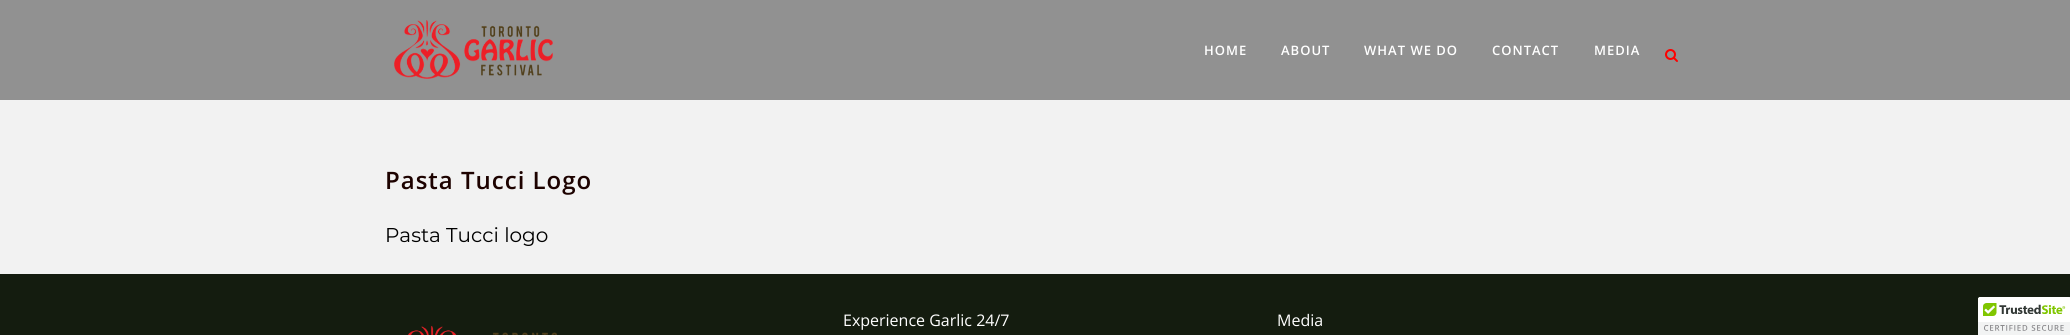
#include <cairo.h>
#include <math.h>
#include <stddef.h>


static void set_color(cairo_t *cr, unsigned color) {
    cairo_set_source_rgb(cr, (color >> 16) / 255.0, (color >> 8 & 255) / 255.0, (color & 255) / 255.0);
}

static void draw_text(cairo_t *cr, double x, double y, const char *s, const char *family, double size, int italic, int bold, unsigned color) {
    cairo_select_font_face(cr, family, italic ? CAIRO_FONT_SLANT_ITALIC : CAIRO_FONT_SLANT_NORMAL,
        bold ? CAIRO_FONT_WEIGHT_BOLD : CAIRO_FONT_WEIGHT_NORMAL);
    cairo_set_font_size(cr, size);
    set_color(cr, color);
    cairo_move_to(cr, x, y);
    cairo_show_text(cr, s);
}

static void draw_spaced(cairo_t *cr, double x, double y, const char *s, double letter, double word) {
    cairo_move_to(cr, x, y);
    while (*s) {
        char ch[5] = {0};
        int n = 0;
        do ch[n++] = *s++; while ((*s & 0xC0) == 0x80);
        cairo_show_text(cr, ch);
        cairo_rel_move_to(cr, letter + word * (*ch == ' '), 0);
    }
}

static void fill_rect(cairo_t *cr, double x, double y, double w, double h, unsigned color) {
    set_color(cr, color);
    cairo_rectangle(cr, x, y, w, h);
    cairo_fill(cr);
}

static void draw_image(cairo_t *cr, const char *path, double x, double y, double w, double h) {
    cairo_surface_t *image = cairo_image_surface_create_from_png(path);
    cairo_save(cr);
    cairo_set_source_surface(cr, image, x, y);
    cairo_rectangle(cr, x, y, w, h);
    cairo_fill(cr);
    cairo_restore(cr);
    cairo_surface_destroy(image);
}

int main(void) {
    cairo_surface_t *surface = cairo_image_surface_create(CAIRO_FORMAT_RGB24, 2070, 335);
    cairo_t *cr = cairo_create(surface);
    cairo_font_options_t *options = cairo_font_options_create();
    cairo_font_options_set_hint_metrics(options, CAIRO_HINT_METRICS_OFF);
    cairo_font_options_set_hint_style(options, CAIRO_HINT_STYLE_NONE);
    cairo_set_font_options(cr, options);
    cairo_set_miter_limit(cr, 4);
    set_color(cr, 0xF2F2F2);
    cairo_paint(cr);
    fill_rect(cr, 0, 0, 2070, 100, 0x919191);
    draw_image(cr, "assets/img1.png", 394, 20, 159, 59);
    cairo_select_font_face(cr, "Open Sans SemiBold", CAIRO_FONT_SLANT_NORMAL, CAIRO_FONT_WEIGHT_NORMAL);
    cairo_set_font_size(cr, 13);
    set_color(cr, 0xFFFFFF);
    draw_spaced(cr, 1204, 55, "HOME", 1, 0);
    draw_spaced(cr, 1281, 55, "ABOUT", 1, 0);
    draw_spaced(cr, 1364, 55, "WHAT WE DO", 1, 0);
    draw_spaced(cr, 1492, 55, "CONTACT", 1, 0);
    draw_spaced(cr, 1594, 55, "MEDIA", 1, 0);
    draw_image(cr, "assets/img2.png", 1665, 49, 13, 13);
    cairo_set_font_size(cr, 24);
    set_color(cr, 0x1D0200);
    draw_spaced(cr, 385, 189, "Pasta Tucci Logo", 1, 0);
    draw_text(cr, 385, 242, "Pasta Tucci logo", "Montserrat", 20, 0, 0, 0x000000);
    fill_rect(cr, 0, 274, 2070, 61, 0x141C0F);
    draw_text(cr, 843, 326, "Experience Garlic 24/7", "Open Sans", 16, 0, 0, 0xFFFFFF);
    draw_text(cr, 1277, 326, "Media", "Open Sans", 16, 0, 0, 0xFFFFFF);
    draw_image(cr, "assets/img3.png", 408, 325, 149, 10);
    cairo_new_path(cr);
    cairo_move_to(cr, 1980, 297);
    cairo_line_to(cr, 2070, 297);
    cairo_line_to(cr, 2070, 335);
    cairo_line_to(cr, 1978, 335);
    cairo_line_to(cr, 1978, 299);
    cairo_curve_to(cr, 1978, 298, 1979, 297, 1980, 297);
    cairo_close_path(cr);
    cairo_fill(cr);
    draw_image(cr, "assets/img4.png", 1978, 297, 92, 38);
    cairo_surface_write_to_png(surface, "output.png");
    cairo_font_options_destroy(options);
    cairo_destroy(cr);
    cairo_surface_destroy(surface);
    return 0;
}
